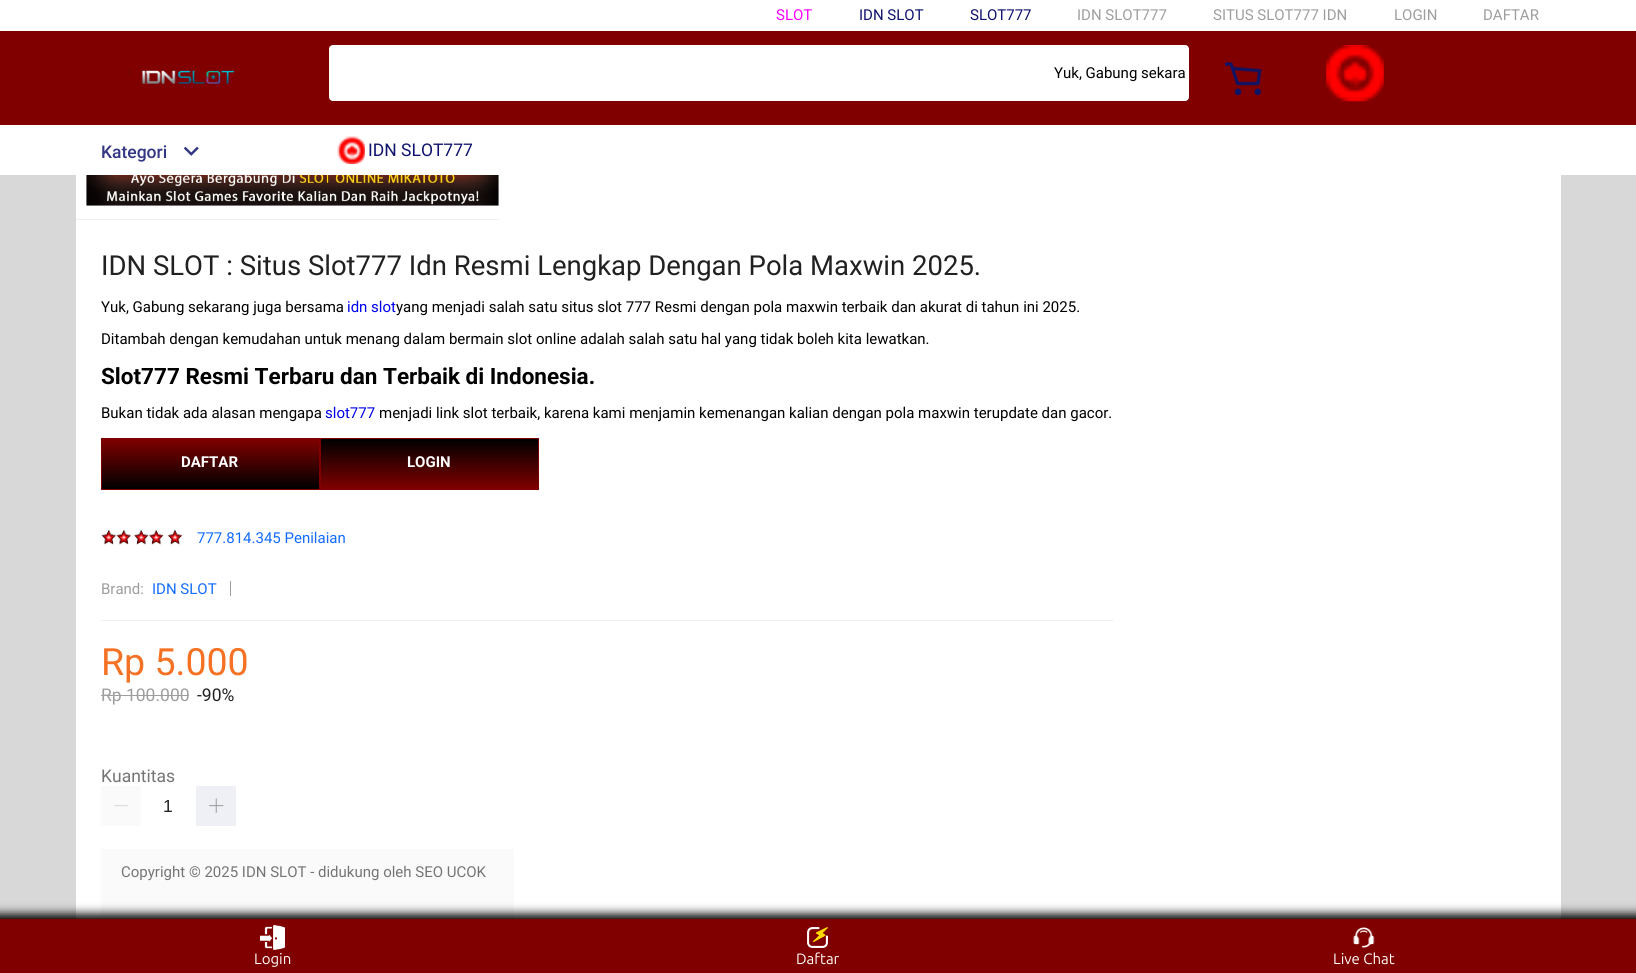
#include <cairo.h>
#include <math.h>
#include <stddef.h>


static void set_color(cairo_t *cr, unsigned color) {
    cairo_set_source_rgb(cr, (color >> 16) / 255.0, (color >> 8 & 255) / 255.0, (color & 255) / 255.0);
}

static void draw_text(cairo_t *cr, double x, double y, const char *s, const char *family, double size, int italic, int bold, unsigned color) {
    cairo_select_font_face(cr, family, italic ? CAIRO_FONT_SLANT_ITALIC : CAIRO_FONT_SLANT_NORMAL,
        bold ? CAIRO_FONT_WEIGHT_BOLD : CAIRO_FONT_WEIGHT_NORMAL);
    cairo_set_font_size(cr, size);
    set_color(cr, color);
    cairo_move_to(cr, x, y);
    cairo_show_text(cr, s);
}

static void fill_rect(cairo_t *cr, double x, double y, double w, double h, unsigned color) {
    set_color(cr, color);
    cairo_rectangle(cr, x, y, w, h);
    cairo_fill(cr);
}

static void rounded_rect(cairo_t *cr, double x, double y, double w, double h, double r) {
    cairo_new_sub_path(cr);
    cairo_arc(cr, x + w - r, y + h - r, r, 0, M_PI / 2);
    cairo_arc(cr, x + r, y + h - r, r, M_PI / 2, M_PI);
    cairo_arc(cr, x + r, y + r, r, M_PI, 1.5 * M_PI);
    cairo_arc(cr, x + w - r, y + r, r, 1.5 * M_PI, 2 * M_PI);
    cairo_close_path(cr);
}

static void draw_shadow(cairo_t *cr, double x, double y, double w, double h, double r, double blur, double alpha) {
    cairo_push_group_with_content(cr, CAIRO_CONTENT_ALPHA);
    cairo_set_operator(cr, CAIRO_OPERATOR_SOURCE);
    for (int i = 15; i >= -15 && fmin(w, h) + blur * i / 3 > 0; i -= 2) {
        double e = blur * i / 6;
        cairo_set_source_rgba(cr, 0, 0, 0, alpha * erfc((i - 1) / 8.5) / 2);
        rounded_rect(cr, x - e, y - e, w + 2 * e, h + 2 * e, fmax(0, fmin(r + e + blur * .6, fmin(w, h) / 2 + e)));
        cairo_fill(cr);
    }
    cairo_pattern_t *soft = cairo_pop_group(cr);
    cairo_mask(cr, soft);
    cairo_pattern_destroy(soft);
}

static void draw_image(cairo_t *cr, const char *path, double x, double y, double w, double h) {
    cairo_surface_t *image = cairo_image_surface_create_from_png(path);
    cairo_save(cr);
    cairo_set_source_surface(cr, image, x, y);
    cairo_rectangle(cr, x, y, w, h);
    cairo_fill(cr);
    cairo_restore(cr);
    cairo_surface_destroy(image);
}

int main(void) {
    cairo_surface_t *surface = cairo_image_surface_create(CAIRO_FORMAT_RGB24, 1636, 973);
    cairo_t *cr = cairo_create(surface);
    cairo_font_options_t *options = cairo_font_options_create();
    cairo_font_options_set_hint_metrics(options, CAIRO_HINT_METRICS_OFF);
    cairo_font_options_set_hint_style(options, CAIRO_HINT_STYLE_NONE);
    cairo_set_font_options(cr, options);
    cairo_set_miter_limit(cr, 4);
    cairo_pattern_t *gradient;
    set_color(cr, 0xD8D8D8);
    cairo_paint(cr);
    fill_rect(cr, 0, 0, 1636, 31, 0xFFFFFF);
    draw_text(cr, 776, 20, "SLOT", "Roboto", 15, 0, 0, 0xFF00FF);
    draw_text(cr, 859, 20, "IDN SLOT", "Roboto", 15, 0, 0, 0x0F136D);
    draw_text(cr, 970, 20, "SLOT777", "Roboto", 15, 0, 0, 0x0F136D);
    draw_text(cr, 1077, 20, "IDN SLOT777", "Roboto", 15, 0, 0, 0x9E9E9E);
    draw_text(cr, 1213, 20, "SITUS SLOT777 IDN", "Roboto", 15, 0, 0, 0x9E9E9E);
    draw_text(cr, 1394, 20, "LOGIN", "Roboto", 15, 0, 0, 0x9E9E9E);
    draw_text(cr, 1483, 20, "DAFTAR", "Roboto", 15, 0, 0, 0x9E9E9E);
    fill_rect(cr, 0, 31, 1636, 94, 0x800000);
    draw_image(cr, "assets/img1.png", 128, 70, 107, 15);
    set_color(cr, 0xFFFFFF);
    rounded_rect(cr, 329, 45, 860, 56, 4);
    cairo_fill(cr);
    draw_text(cr, 1054, 78, "Yuk, Gabung sekara", "Roboto", 15, 0, 0, 0x000000);
    draw_image(cr, "assets/img2.png", 1225, 62, 37, 33);
    draw_image(cr, "assets/img3.png", 1326, 45, 58, 57);
    fill_rect(cr, 0, 125, 1636, 50, 0xFFFFFF);
    draw_text(cr, 101, 158, "Kategori", "Roboto Medium", 17.5, 0, 0, 0x333683);
    draw_image(cr, "assets/img4.png", 183, 146, 16, 10);
    draw_image(cr, "assets/img5.png", 337, 136, 28, 28);
    draw_text(cr, 368, 156, "IDN SLOT777", "Roboto", 17.5, 0, 0, 0x0F136D);
    fill_rect(cr, 76, 175, 1485, 744, 0xFFFFFF);
    fill_rect(cr, 76, 219, 423, 1, 0xEFF0F5);
    draw_image(cr, "assets/img6.png", 86, 175, 413, 31);
    draw_text(cr, 101, 275, "IDN SLOT : Situs Slot777 Idn Resmi Lengkap Dengan Pola Maxwin 2025.", "Roboto", 27.5, 0, 0, 0x212121);
    draw_text(cr, 101, 312, "Yuk, Gabung sekarang juga bersama", "Roboto", 15, 0, 0, 0x000000);
    draw_text(cr, 347, 312, "idn slot", "Roboto", 15, 0, 0, 0x0000EE);
    draw_text(cr, 396, 312, "yang menjadi salah satu situs slot 777 Resmi dengan pola maxwin terbaik dan akurat di tahun ini 2025.", "Roboto", 15, 0, 0, 0x000000);
    draw_text(cr, 101, 344, "Ditambah dengan kemudahan untuk menang dalam bermain slot online adalah salah satu hal yang tidak boleh kita lewatkan.", "Roboto", 15, 0, 0, 0x000000);
    draw_text(cr, 101, 384, "Slot777 Resmi Terbaru dan Terbaik di Indonesia.", "Roboto", 22.5, 0, 1, 0x000000);
    draw_text(cr, 101, 418, "Bukan tidak ada alasan mengapa", "Roboto", 15, 0, 0, 0x000000);
    draw_text(cr, 325, 418, "slot777", "Roboto", 15, 0, 0, 0x0000EE);
    draw_text(cr, 379, 418, "menjadi link slot terbaik, karena kami menjamin kemenangan kalian dengan pola maxwin terupdate dan gacor.", "Roboto", 15, 0, 0, 0x000000);
    gradient = cairo_pattern_create_linear(211, 439, 211, 489);
    cairo_pattern_add_color_stop_rgba(gradient, 0, 0.502, 0, 0, 1);
    cairo_pattern_add_color_stop_rgba(gradient, 1, 0, 0, 0, 1);
    cairo_set_source(cr, gradient);
    cairo_pattern_destroy(gradient);
    cairo_rectangle(cr, 102, 439, 217, 50);
    cairo_fill(cr);
    cairo_rectangle(cr, 101.5, 438.5, 218, 51);
    set_color(cr, 0x800000);
    cairo_set_line_width(cr, 1);
    cairo_stroke(cr);
    draw_text(cr, 181, 467, "DAFTAR", "Roboto", 15, 0, 1, 0xFFFFFF);
    gradient = cairo_pattern_create_linear(429, 439, 429, 489);
    cairo_pattern_add_color_stop_rgba(gradient, 0, 0, 0, 0, 1);
    cairo_pattern_add_color_stop_rgba(gradient, 1, 0.502, 0, 0, 1);
    cairo_set_source(cr, gradient);
    cairo_pattern_destroy(gradient);
    cairo_rectangle(cr, 321, 439, 217, 50);
    cairo_fill(cr);
    cairo_rectangle(cr, 320.5, 438.5, 218, 51);
    set_color(cr, 0x800000);
    cairo_stroke(cr);
    draw_text(cr, 407, 467, "LOGIN", "Roboto", 15, 0, 1, 0xFFFFFF);
    draw_image(cr, "assets/img7.png", 101, 529, 16, 16);
    draw_image(cr, "assets/img8.png", 116, 529, 16, 16);
    draw_image(cr, "assets/img9.png", 133, 530, 16, 15);
    draw_image(cr, "assets/img10.png", 148, 530, 16, 15);
    draw_image(cr, "assets/img11.png", 167, 529, 16, 16);
    draw_text(cr, 197, 543, "777.814.345 Penilaian", "Roboto", 15, 0, 0, 0x136CFF);
    fill_rect(cr, 101, 620, 1013, 1, 0xEFF0F5);
    draw_text(cr, 101, 594, "Brand:", "Roboto", 15, 0, 0, 0x9E9E9E);
    draw_text(cr, 152, 594, "IDN SLOT", "Roboto", 15, 0, 0, 0x136CFF);
    fill_rect(cr, 230, 581, 1, 15, 0x9E9E9E);
    draw_text(cr, 101, 675, "Rp 5.000", "Roboto", 37.5, 0, 0, 0xF57224);
    draw_text(cr, 101, 701, "Rp 100.000", "Roboto", 17.5, 0, 0, 0x9E9E9E);
    fill_rect(cr, 101, 695, 88, 1, 0x9E9E9E);
    draw_text(cr, 197, 701, "-90%", "Roboto", 17.5, 0, 0, 0x212121);
    draw_text(cr, 101, 782, "Kuantitas", "Roboto", 17.5, 0, 0, 0x757575);
    fill_rect(cr, 101, 786, 40, 40, 0xFAFAFA);
    draw_image(cr, "assets/img12.png", 114, 805, 15, 2);
    fill_rect(cr, 196, 786, 40, 40, 0xEFF0F5);
    draw_image(cr, "assets/img13.png", 209, 798, 15, 15);
    draw_text(cr, 163, 812, "1", "Liberation Sans", 17.5, 0, 0, 0x212121);
    fill_rect(cr, 101, 849, 413, 70, 0xFAFAFA);
    draw_text(cr, 121, 877, "Copyright © 2025 IDN SLOT - didukung oleh SEO UCOK", "Roboto", 15, 0, 0, 0x757575);
    set_color(cr, 0x000000);
    draw_shadow(cr, -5, 914, 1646, 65, 0, 5, 1);
    fill_rect(cr, 0, 919, 1636, 54, 0x800000);
    draw_image(cr, "assets/img14.png", 260, 925, 25, 25);
    draw_text(cr, 254, 964, "Login", "Ubuntu", 15, 0, 0, 0xFFFFFF);
    draw_image(cr, "assets/img15.png", 807, 927, 21, 21);
    draw_text(cr, 796, 964, "Daftar", "Ubuntu", 15, 0, 0, 0xFFFFFF);
    draw_image(cr, "assets/img16.png", 1353, 927, 22, 21);
    draw_text(cr, 1333, 964, "Live Chat", "Ubuntu", 15, 0, 0, 0xFFFFFF);
    cairo_surface_write_to_png(surface, "output.png");
    cairo_font_options_destroy(options);
    cairo_destroy(cr);
    cairo_surface_destroy(surface);
    return 0;
}
